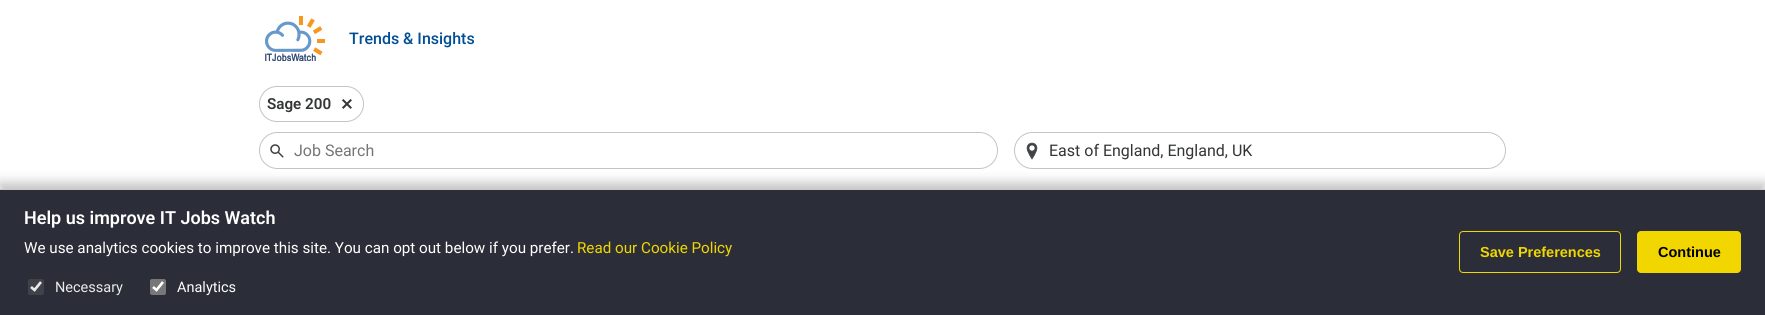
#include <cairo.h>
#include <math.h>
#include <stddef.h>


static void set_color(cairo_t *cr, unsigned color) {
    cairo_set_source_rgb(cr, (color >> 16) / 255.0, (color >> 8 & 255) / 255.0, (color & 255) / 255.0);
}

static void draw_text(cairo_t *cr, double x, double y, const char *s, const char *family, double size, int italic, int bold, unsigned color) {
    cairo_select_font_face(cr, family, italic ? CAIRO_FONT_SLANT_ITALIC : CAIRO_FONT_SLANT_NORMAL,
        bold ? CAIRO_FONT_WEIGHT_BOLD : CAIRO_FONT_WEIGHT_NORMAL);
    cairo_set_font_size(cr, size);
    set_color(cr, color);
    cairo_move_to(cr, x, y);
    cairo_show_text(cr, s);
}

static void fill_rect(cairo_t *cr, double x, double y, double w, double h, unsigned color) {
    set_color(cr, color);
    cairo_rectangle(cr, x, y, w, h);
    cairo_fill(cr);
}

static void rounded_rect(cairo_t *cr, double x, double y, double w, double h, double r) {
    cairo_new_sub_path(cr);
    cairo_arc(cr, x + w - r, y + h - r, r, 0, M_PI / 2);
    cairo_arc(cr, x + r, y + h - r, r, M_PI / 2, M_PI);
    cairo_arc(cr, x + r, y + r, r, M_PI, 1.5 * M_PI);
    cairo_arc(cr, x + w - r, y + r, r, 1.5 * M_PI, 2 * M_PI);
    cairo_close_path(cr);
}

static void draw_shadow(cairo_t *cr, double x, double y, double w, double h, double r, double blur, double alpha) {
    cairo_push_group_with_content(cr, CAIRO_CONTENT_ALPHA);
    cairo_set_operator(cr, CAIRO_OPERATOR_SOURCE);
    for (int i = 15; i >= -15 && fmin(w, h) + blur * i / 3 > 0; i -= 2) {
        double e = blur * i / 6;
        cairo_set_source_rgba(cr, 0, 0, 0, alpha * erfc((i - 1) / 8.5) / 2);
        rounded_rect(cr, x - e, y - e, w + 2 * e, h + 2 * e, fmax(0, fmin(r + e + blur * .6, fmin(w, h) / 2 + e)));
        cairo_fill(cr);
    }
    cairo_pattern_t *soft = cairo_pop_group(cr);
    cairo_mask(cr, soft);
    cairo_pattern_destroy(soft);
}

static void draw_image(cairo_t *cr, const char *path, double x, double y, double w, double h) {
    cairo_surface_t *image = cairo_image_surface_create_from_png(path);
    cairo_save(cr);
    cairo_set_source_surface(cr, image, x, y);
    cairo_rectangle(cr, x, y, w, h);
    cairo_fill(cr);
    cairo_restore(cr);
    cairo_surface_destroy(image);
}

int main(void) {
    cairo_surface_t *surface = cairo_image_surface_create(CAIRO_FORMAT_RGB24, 1765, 315);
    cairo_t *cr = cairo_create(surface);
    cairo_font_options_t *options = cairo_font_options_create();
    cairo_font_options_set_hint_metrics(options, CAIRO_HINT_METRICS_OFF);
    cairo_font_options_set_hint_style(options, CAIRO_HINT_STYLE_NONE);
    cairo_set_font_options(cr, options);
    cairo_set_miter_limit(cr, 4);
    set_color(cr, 0xFFFFFF);
    cairo_paint(cr);
    draw_image(cr, "assets/img1.png", 265, 16, 60, 45);
    draw_text(cr, 349, 44, "Trends & Insights", "Roboto Medium", 16, 0, 0, 0x004E96);
    rounded_rect(cr, 259.5, 86.5, 104, 35, 17.5);
    set_color(cr, 0xC2C4C6);
    cairo_set_line_width(cr, 1);
    cairo_stroke(cr);
    draw_text(cr, 267, 109, "Sage 200", "Roboto SemiBold", 15.2, 0, 0, 0x333536);
    draw_text(cr, 340, 110, "✕", "DejaVu Sans", 16, 0, 1, 0x333536);
    rounded_rect(cr, 259.5, 132.5, 738, 36, 18);
    set_color(cr, 0xC2C4C6);
    cairo_stroke(cr);
    draw_image(cr, "assets/img2.png", 270, 144, 14, 14);
    draw_text(cr, 294, 156, "Job Search", "Roboto", 16, 0, 0, 0x757575);
    rounded_rect(cr, 1014.5, 132.5, 491, 36, 18);
    set_color(cr, 0xC2C4C6);
    cairo_stroke(cr);
    draw_image(cr, "assets/img3.png", 1026, 142, 12, 18);
    draw_text(cr, 1049, 156, "East of England, England, UK", "Roboto", 16, 0, 0, 0x333536);
    set_color(cr, 0x000000);
    draw_shadow(cr, 0, 183, 1765, 126, 0, 6, 0.25);
    fill_rect(cr, 0, 190, 1765, 125, 0x2B2E38);
    fill_rect(cr, 0, 189, 1765, 1, 0xCCCCCC);
    draw_text(cr, 24, 224, "Help us improve IT Jobs Watch", "Roboto SemiBold", 18, 0, 0, 0xFFFFFF);
    draw_text(cr, 24, 253, "We use analytics cookies to improve this site. You can opt out below if you prefer.", "Roboto", 15.2, 0, 0, 0xFFFFFF);
    draw_text(cr, 577, 253, "Read our Cookie Policy", "Roboto", 15.2, 0, 0, 0xF1D600);
    set_color(cr, 0x3F4249);
    rounded_rect(cr, 28, 279, 16, 16, 2);
    cairo_fill(cr);
    cairo_new_path(cr);
    cairo_move_to(cr, 31, 287);
    cairo_line_to(cr, 34.5, 290);
    cairo_line_to(cr, 41, 282);
    set_color(cr, 0xEAEAEB);
    cairo_set_line_width(cr, 2.6);
    cairo_stroke(cr);
    draw_text(cr, 55, 292, "Necessary", "Roboto", 14.5, 0, 0, 0xEAEAEB);
    set_color(cr, 0x777777);
    rounded_rect(cr, 150, 279, 16, 16, 2);
    cairo_fill(cr);
    cairo_new_path(cr);
    cairo_move_to(cr, 153, 287);
    cairo_line_to(cr, 156.5, 290);
    cairo_line_to(cr, 163, 282);
    set_color(cr, 0xFFFFFF);
    cairo_stroke(cr);
    draw_text(cr, 177, 292, "Analytics", "Roboto", 14.5, 0, 0, 0xFFFFFF);
    rounded_rect(cr, 1459.5, 231.5, 161, 41, 3.5);
    set_color(cr, 0xF1D600);
    cairo_set_line_width(cr, 1);
    cairo_stroke(cr);
    draw_text(cr, 1480, 257, "Save Preferences", "Liberation Sans", 14.5, 0, 1, 0xF1D600);
    rounded_rect(cr, 1637.5, 231.5, 103, 41, 3.5);
    cairo_fill_preserve(cr);
    cairo_stroke(cr);
    draw_text(cr, 1658, 257, "Continue", "Liberation Sans", 14.5, 0, 1, 0x000000);
    cairo_surface_write_to_png(surface, "output.png");
    cairo_font_options_destroy(options);
    cairo_destroy(cr);
    cairo_surface_destroy(surface);
    return 0;
}
